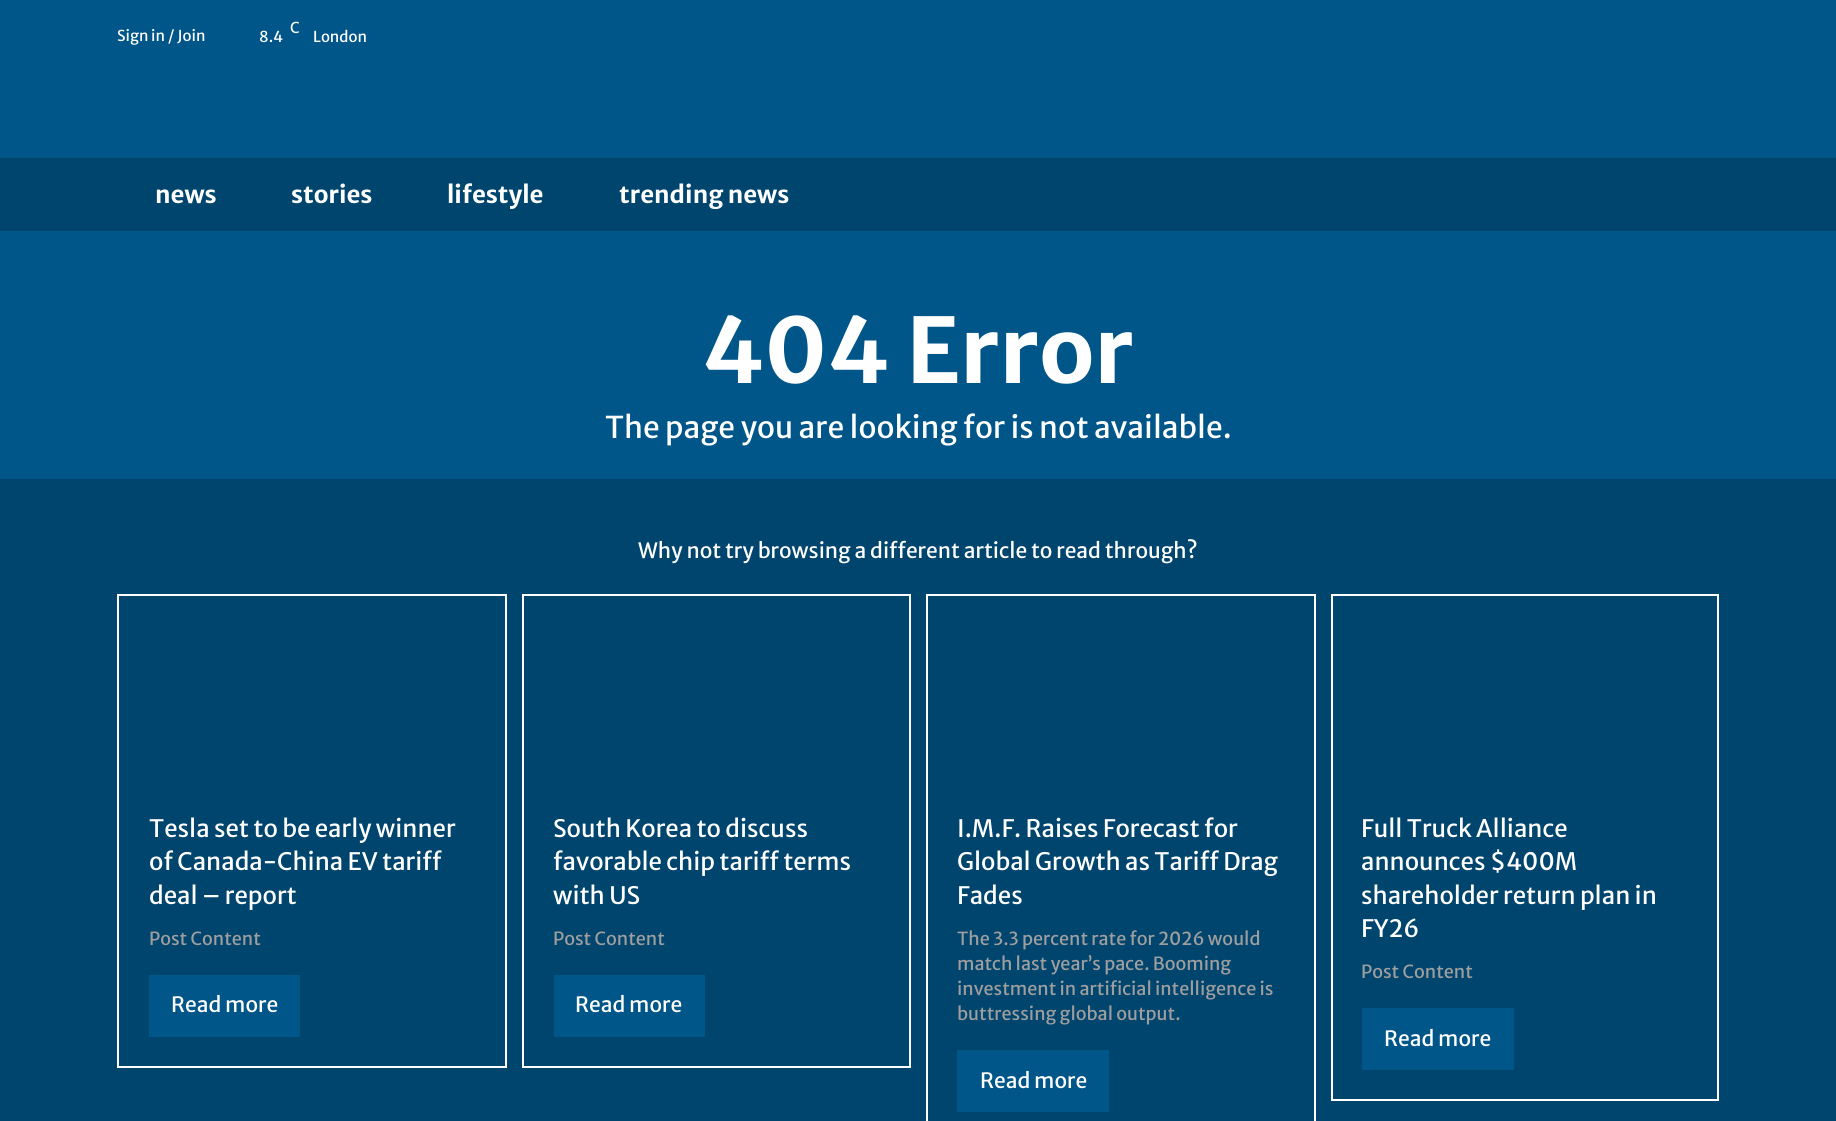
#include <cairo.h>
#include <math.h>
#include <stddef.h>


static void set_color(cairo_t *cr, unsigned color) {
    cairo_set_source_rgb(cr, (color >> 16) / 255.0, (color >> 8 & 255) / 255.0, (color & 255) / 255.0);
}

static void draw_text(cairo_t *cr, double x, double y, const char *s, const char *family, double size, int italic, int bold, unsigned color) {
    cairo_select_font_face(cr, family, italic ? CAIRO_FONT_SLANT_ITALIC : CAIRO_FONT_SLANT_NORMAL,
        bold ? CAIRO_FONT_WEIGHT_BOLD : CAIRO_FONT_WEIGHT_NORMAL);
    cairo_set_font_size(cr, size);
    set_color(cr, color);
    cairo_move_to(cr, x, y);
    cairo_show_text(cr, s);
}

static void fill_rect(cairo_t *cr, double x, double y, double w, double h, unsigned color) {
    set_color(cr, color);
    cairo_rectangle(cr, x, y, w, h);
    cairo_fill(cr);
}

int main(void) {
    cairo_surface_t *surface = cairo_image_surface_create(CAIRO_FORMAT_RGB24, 1836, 1121);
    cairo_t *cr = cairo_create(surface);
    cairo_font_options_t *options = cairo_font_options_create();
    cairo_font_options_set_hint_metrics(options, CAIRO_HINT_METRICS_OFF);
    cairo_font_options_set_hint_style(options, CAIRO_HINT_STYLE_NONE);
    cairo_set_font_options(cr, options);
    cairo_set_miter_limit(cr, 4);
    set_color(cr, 0x005689);
    cairo_paint(cr);
    draw_text(cr, 117, 41, "Sign in / Join", "Merriweather Sans", 15, 0, 0, 0xFFFFFF);
    draw_text(cr, 290, 33, "C", "Merriweather Sans", 15, 0, 0, 0xFFFFFF);
    draw_text(cr, 259, 42, "8.4", "Merriweather Sans", 15, 0, 0, 0xFFFFFF);
    draw_text(cr, 313, 42, "London", "Merriweather Sans", 15, 0, 0, 0xFFFFFF);
    fill_rect(cr, 0, 158, 1836, 73, 0x00456E);
    draw_text(cr, 155, 203, "news", "Merriweather Sans", 24, 0, 1, 0xFFFFFF);
    draw_text(cr, 291, 203, "stories", "Merriweather Sans", 24, 0, 1, 0xFFFFFF);
    draw_text(cr, 447, 203, "lifestyle", "Merriweather Sans", 24, 0, 1, 0xFFFFFF);
    draw_text(cr, 619, 203, "trending news", "Merriweather Sans", 24, 0, 1, 0xFFFFFF);
    draw_text(cr, 702, 383, "404 Error", "Merriweather Sans", 90, 0, 1, 0xFFFFFF);
    draw_text(cr, 605, 438, "The page you are looking for is not available.", "Merriweather Sans", 30, 0, 0, 0xFFFFFF);
    fill_rect(cr, 0, 479, 1836, 642, 0x00456E);
    draw_text(cr, 638, 558, "Why not try browsing a different article to read through?", "Merriweather Sans", 21, 0, 0, 0xFFFFFF);
    cairo_rectangle(cr, 118, 595, 388, 472);
    cairo_stroke(cr);
    draw_text(cr, 149, 837, "Tesla set to be early winner", "Merriweather Sans", 24, 0, 0, 0xFFFFFF);
    draw_text(cr, 149, 870, "of Canada-China EV tariff", "Merriweather Sans", 24, 0, 0, 0xFFFFFF);
    draw_text(cr, 149, 904, "deal – report", "Merriweather Sans", 24, 0, 0, 0xFFFFFF);
    draw_text(cr, 149, 945, "Post Content", "Merriweather Sans", 18, 0, 0, 0x9E9E9E);
    fill_rect(cr, 149, 975, 151, 62, 0x005689);
    draw_text(cr, 171, 1012, "Read more", "Merriweather Sans", 21, 0, 0, 0xFFFFFF);
    cairo_rectangle(cr, 523, 595, 387, 472);
    cairo_stroke(cr);
    draw_text(cr, 553, 837, "South Korea to discuss", "Merriweather Sans", 24, 0, 0, 0xFFFFFF);
    draw_text(cr, 553, 870, "favorable chip tariff terms", "Merriweather Sans", 24, 0, 0, 0xFFFFFF);
    draw_text(cr, 553, 904, "with US", "Merriweather Sans", 24, 0, 0, 0xFFFFFF);
    draw_text(cr, 553, 945, "Post Content", "Merriweather Sans", 18, 0, 0, 0x9E9E9E);
    fill_rect(cr, 554, 975, 151, 62, 0x005689);
    draw_text(cr, 575, 1012, "Read more", "Merriweather Sans", 21, 0, 0, 0xFFFFFF);
    cairo_rectangle(cr, 927, 595, 388, 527);
    cairo_stroke(cr);
    draw_text(cr, 957, 837, "I.M.F. Raises Forecast for", "Merriweather Sans", 24, 0, 0, 0xFFFFFF);
    draw_text(cr, 957, 870, "Global Growth as Tariff Drag", "Merriweather Sans", 24, 0, 0, 0xFFFFFF);
    draw_text(cr, 957, 904, "Fades", "Merriweather Sans", 24, 0, 0, 0xFFFFFF);
    draw_text(cr, 957, 945, "The 3.3 percent rate for 2026 would", "Merriweather Sans", 18, 0, 0, 0x9E9E9E);
    draw_text(cr, 957, 970, "match last year’s pace. Booming", "Merriweather Sans", 18, 0, 0, 0x9E9E9E);
    draw_text(cr, 957, 995, "investment in artificial intelligence is", "Merriweather Sans", 18, 0, 0, 0x9E9E9E);
    draw_text(cr, 957, 1020, "buttressing global output.", "Merriweather Sans", 18, 0, 0, 0x9E9E9E);
    fill_rect(cr, 957, 1050, 152, 62, 0x005689);
    draw_text(cr, 980, 1088, "Read more", "Merriweather Sans", 21, 0, 0, 0xFFFFFF);
    cairo_rectangle(cr, 1332, 595, 386, 505);
    cairo_stroke(cr);
    draw_text(cr, 1361, 837, "Full Truck Alliance", "Merriweather Sans", 24, 0, 0, 0xFFFFFF);
    draw_text(cr, 1361, 870, "announces $400M", "Merriweather Sans", 24, 0, 0, 0xFFFFFF);
    draw_text(cr, 1361, 904, "shareholder return plan in", "Merriweather Sans", 24, 0, 0, 0xFFFFFF);
    draw_text(cr, 1361, 937, "FY26", "Merriweather Sans", 24, 0, 0, 0xFFFFFF);
    draw_text(cr, 1361, 978, "Post Content", "Merriweather Sans", 18, 0, 0, 0x9E9E9E);
    fill_rect(cr, 1362, 1008, 152, 62, 0x005689);
    draw_text(cr, 1384, 1046, "Read more", "Merriweather Sans", 21, 0, 0, 0xFFFFFF);
    cairo_surface_write_to_png(surface, "output.png");
    cairo_font_options_destroy(options);
    cairo_destroy(cr);
    cairo_surface_destroy(surface);
    return 0;
}
